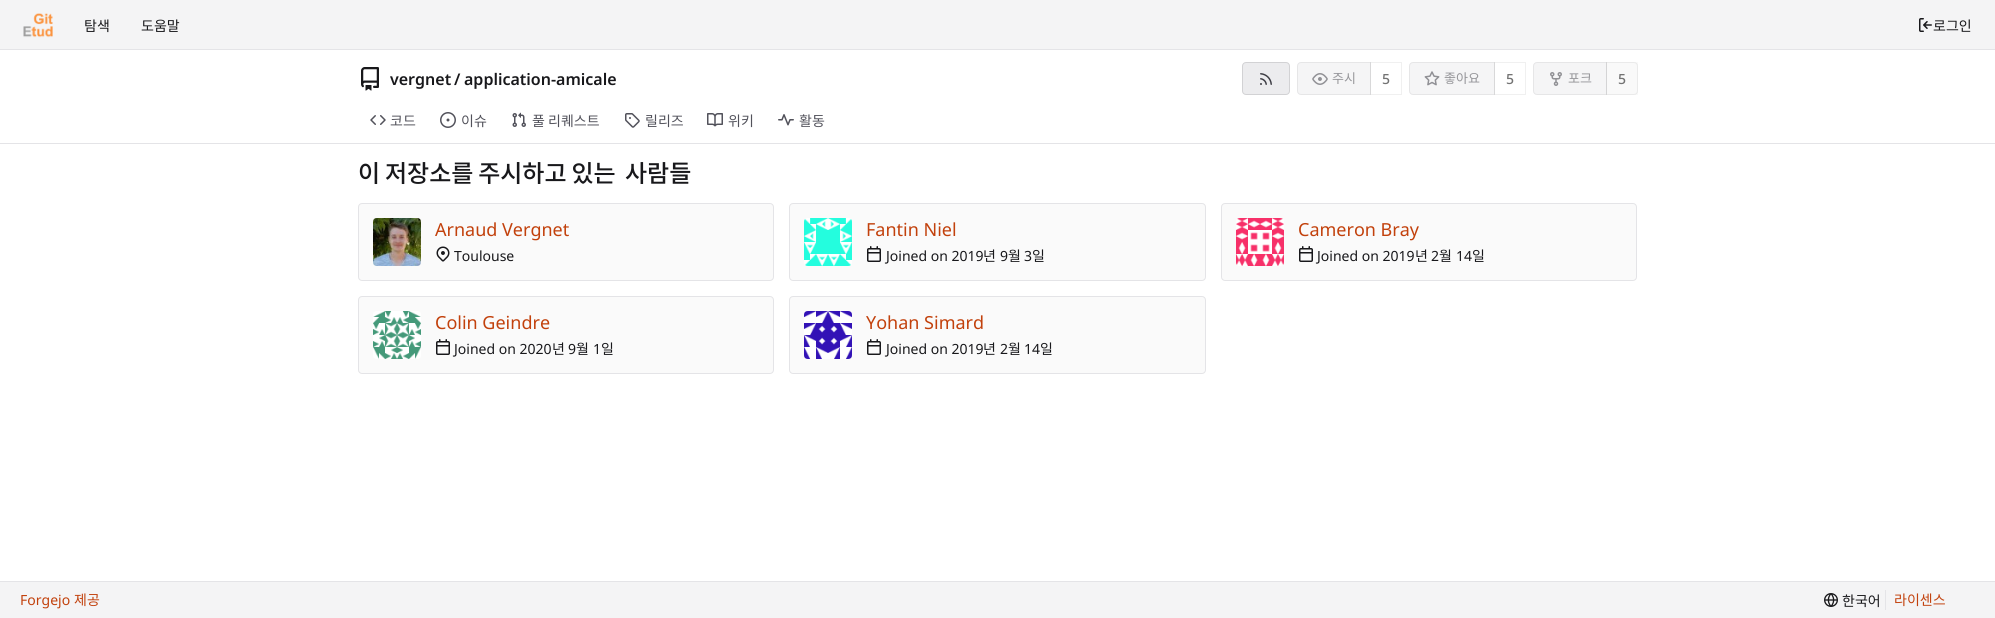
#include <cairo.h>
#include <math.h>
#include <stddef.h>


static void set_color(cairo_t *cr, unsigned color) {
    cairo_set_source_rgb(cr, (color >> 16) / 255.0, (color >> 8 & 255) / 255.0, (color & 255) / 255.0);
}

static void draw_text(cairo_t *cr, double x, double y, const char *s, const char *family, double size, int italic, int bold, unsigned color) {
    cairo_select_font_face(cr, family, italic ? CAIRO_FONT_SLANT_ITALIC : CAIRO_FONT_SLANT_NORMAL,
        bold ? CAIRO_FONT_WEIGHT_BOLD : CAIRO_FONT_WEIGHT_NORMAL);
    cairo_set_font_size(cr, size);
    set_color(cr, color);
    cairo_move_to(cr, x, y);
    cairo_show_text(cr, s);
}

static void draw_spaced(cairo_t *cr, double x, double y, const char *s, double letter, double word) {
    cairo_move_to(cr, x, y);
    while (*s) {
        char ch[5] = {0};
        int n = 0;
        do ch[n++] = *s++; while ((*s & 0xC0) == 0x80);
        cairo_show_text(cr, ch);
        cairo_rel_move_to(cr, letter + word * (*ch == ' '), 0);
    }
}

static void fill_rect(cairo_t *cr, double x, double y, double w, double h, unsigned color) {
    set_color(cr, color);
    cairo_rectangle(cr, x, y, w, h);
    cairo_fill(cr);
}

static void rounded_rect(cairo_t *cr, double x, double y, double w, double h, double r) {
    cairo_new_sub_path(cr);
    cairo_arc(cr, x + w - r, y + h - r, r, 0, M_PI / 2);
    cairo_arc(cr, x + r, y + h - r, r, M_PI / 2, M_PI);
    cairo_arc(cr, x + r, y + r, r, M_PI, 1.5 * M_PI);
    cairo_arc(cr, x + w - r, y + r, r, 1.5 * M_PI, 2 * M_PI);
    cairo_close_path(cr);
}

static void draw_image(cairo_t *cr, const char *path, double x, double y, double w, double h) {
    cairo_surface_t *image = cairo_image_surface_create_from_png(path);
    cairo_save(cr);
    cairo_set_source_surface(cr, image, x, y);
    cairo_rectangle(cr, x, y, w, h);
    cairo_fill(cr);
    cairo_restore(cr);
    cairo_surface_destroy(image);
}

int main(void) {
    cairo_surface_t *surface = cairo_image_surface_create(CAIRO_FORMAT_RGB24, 1995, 618);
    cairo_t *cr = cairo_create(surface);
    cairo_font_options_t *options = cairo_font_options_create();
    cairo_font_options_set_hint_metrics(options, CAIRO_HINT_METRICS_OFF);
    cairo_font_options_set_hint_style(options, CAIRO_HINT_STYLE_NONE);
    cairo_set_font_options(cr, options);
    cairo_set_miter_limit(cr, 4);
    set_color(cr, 0xFFFFFF);
    cairo_paint(cr);
    fill_rect(cr, 0, 0, 1995, 49, 0xF4F4F5);
    fill_rect(cr, 0, 49, 1995, 1, 0xE4E4E7);
    draw_image(cr, "assets/img1.png", 23, 13, 30, 25);
    draw_text(cr, 84, 31, "탐색", "Noto Sans CJK KR", 14, 0, 0, 0x18181B);
    draw_text(cr, 141, 31, "도움말", "Noto Sans CJK KR", 14, 0, 0, 0x18181B);
    draw_image(cr, "assets/img2.png", 1919, 18, 13, 14);
    draw_text(cr, 1933, 31, "로그인", "Noto Sans CJK KR", 14, 0, 0, 0x18181B);
    draw_image(cr, "assets/img3.png", 361, 67, 18, 24);
    draw_text(cr, 390, 85, "vergnet", "Noto Sans SemiBold", 16, 0, 0, 0x18181B);
    draw_text(cr, 454, 85, "/", "Noto Sans SemiBold", 16, 0, 0, 0x18181B);
    draw_text(cr, 464, 85, "application-amicale", "Noto Sans SemiBold", 16, 0, 0, 0x18181B);
    set_color(cr, 0xECECEE);
    rounded_rect(cr, 1242, 62, 48, 33, 4);
    cairo_fill(cr);
    rounded_rect(cr, 1242.5, 62.5, 47, 32, 3.5);
    cairo_set_source_rgba(cr, 0, 0, 0, 0.11);
    cairo_set_line_width(cr, 1);
    cairo_stroke(cr);
    draw_image(cr, "assets/img4.png", 1260, 73, 12, 12);
    set_color(cr, 0xF5F5F6);
    cairo_new_path(cr);
    cairo_move_to(cr, 1301, 62);
    cairo_line_to(cr, 1371, 62);
    cairo_line_to(cr, 1371, 95);
    cairo_line_to(cr, 1301, 95);
    cairo_curve_to(cr, 1299, 95, 1297, 93, 1297, 91);
    cairo_line_to(cr, 1297, 66);
    cairo_curve_to(cr, 1297, 64, 1299, 62, 1301, 62);
    cairo_close_path(cr);
    cairo_fill(cr);
    cairo_new_path(cr);
    cairo_move_to(cr, 1301, 62.5);
    cairo_line_to(cr, 1370.5, 62.5);
    cairo_line_to(cr, 1370.5, 94.5);
    cairo_line_to(cr, 1301, 94.5);
    cairo_curve_to(cr, 1299, 94.5, 1297.5, 93, 1297.5, 91);
    cairo_line_to(cr, 1297.5, 66);
    cairo_curve_to(cr, 1297.5, 64, 1299, 62.5, 1301, 62.5);
    cairo_close_path(cr);
    cairo_set_source_rgba(cr, 0.451, 0.451, 0.451, 0.11);
    cairo_stroke(cr);
    draw_image(cr, "assets/img5.png", 1312, 73, 16, 12);
    draw_text(cr, 1332, 83, "주시", "Noto Sans CJK KR", 13, 0, 0, 0x959599);
    cairo_rectangle(cr, 1370.5, 62.5, 31, 32);
    cairo_set_source_rgba(cr, 0, 0, 0, 0.06);
    cairo_stroke(cr);
    draw_text(cr, 1382, 84, "5", "Noto Sans Medium", 14, 0, 0, 0x737373);
    set_color(cr, 0xF5F5F6);
    cairo_new_path(cr);
    cairo_move_to(cr, 1413, 62);
    cairo_line_to(cr, 1495, 62);
    cairo_line_to(cr, 1495, 95);
    cairo_line_to(cr, 1413, 95);
    cairo_curve_to(cr, 1411, 95, 1409, 93, 1409, 91);
    cairo_line_to(cr, 1409, 66);
    cairo_curve_to(cr, 1409, 64, 1411, 62, 1413, 62);
    cairo_close_path(cr);
    cairo_fill(cr);
    cairo_new_path(cr);
    cairo_move_to(cr, 1413, 62.5);
    cairo_line_to(cr, 1494.5, 62.5);
    cairo_line_to(cr, 1494.5, 94.5);
    cairo_line_to(cr, 1413, 94.5);
    cairo_curve_to(cr, 1411, 94.5, 1409.5, 93, 1409.5, 91);
    cairo_line_to(cr, 1409.5, 66);
    cairo_curve_to(cr, 1409.5, 64, 1411, 62.5, 1413, 62.5);
    cairo_close_path(cr);
    cairo_set_source_rgba(cr, 0.451, 0.451, 0.451, 0.11);
    cairo_stroke(cr);
    draw_image(cr, "assets/img6.png", 1424, 71, 16, 15);
    draw_text(cr, 1444, 83, "좋아요", "Noto Sans CJK KR", 13, 0, 0, 0x959599);
    cairo_rectangle(cr, 1494.5, 62.5, 31, 32);
    cairo_set_source_rgba(cr, 0, 0, 0, 0.06);
    cairo_stroke(cr);
    draw_text(cr, 1506, 84, "5", "Noto Sans Medium", 14, 0, 0, 0x737373);
    set_color(cr, 0xF5F5F6);
    cairo_new_path(cr);
    cairo_move_to(cr, 1537, 62);
    cairo_line_to(cr, 1607, 62);
    cairo_line_to(cr, 1607, 95);
    cairo_line_to(cr, 1537, 95);
    cairo_curve_to(cr, 1535, 95, 1533, 93, 1533, 91);
    cairo_line_to(cr, 1533, 66);
    cairo_curve_to(cr, 1533, 64, 1535, 62, 1537, 62);
    cairo_close_path(cr);
    cairo_fill(cr);
    cairo_new_path(cr);
    cairo_move_to(cr, 1537, 62.5);
    cairo_line_to(cr, 1606.5, 62.5);
    cairo_line_to(cr, 1606.5, 94.5);
    cairo_line_to(cr, 1537, 94.5);
    cairo_curve_to(cr, 1535, 94.5, 1533.5, 93, 1533.5, 91);
    cairo_line_to(cr, 1533.5, 66);
    cairo_curve_to(cr, 1533.5, 64, 1535, 62.5, 1537, 62.5);
    cairo_close_path(cr);
    cairo_set_source_rgba(cr, 0.451, 0.451, 0.451, 0.11);
    cairo_stroke(cr);
    draw_image(cr, "assets/img7.png", 1550, 72, 12, 14);
    draw_text(cr, 1568, 83, "포크", "Noto Sans CJK KR", 13, 0, 0, 0x959599);
    cairo_set_source_rgba(cr, 0.451, 0.451, 0.451, 0.04);
    cairo_rectangle(cr, 1606, 62, 32, 33);
    cairo_fill(cr);
    cairo_new_path(cr);
    cairo_move_to(cr, 1606.5, 62.5);
    cairo_line_to(cr, 1634, 62.5);
    cairo_curve_to(cr, 1636, 62.5, 1637.5, 64, 1637.5, 66);
    cairo_line_to(cr, 1637.5, 91);
    cairo_curve_to(cr, 1637.5, 93, 1636, 94.5, 1634, 94.5);
    cairo_line_to(cr, 1606.5, 94.5);
    cairo_close_path(cr);
    cairo_set_source_rgba(cr, 0.451, 0.451, 0.451, 0.11);
    cairo_stroke(cr);
    draw_text(cr, 1618, 84, "5", "Noto Sans Medium", 14, 0, 0, 0x737373);
    draw_image(cr, "assets/img8.png", 370, 115, 16, 10);
    draw_text(cr, 390, 126, "코드", "Noto Sans CJK KR", 14, 0, 0, 0x52525B);
    draw_image(cr, "assets/img9.png", 440, 112, 16, 16);
    draw_text(cr, 461, 126, "이슈", "Noto Sans CJK KR", 14, 0, 0, 0x52525B);
    draw_image(cr, "assets/img10.png", 512, 112, 14, 15);
    draw_text(cr, 532, 126, "풀 리퀘스트", "Noto Sans CJK KR", 14, 0, 0, 0x52525B);
    draw_image(cr, "assets/img11.png", 625, 113, 15, 15);
    draw_text(cr, 645, 126, "릴리즈", "Noto Sans CJK KR", 14, 0, 0, 0x52525B);
    draw_image(cr, "assets/img12.png", 707, 113, 16, 14);
    draw_text(cr, 728, 126, "위키", "Noto Sans CJK KR", 14, 0, 0, 0x52525B);
    draw_image(cr, "assets/img13.png", 778, 114, 16, 12);
    draw_text(cr, 799, 126, "활동", "Noto Sans CJK KR", 14, 0, 0, 0x52525B);
    fill_rect(cr, 0, 143, 1995, 1, 0xE4E4E7);
    cairo_select_font_face(cr, "Noto Sans CJK KR Medium", CAIRO_FONT_SLANT_NORMAL, CAIRO_FONT_WEIGHT_NORMAL);
    cairo_set_font_size(cr, 24);
    set_color(cr, 0x18181B);
    draw_spaced(cr, 358, 182, "이 저장소를 주시하고 있는", 0, -0.5);
    draw_spaced(cr, 625, 182, "사람들", 0, -0.5);
    set_color(cr, 0xFAFAFA);
    rounded_rect(cr, 358.5, 203.5, 415, 77, 3.5);
    cairo_fill_preserve(cr);
    set_color(cr, 0xE4E4E7);
    cairo_stroke(cr);
    draw_image(cr, "assets/img14.png", 373, 218, 48, 48);
    draw_text(cr, 435, 236, "Arnaud Vergnet", "Noto Sans", 18, 0, 0, 0xC2410C);
    draw_image(cr, "assets/img15.png", 436, 246, 14, 16);
    draw_text(cr, 454, 261, "Toulouse", "Noto Sans", 14, 0, 0, 0x18181B);
    set_color(cr, 0xFAFAFA);
    rounded_rect(cr, 789.5, 203.5, 416, 77, 3.5);
    cairo_fill_preserve(cr);
    set_color(cr, 0xE4E4E7);
    cairo_stroke(cr);
    draw_image(cr, "assets/img16.png", 804, 218, 48, 48);
    draw_text(cr, 866, 236, "Fantin Niel", "Noto Sans", 18, 0, 0, 0xC2410C);
    draw_image(cr, "assets/img17.png", 867, 246, 14, 16);
    draw_text(cr, 886, 261, "Joined on 2019", "Noto Sans", 14, 0, 0, 0x18181B);
    draw_text(cr, 983, 261, "년", "Noto Sans CJK KR", 14, 0, 0, 0x18181B);
    draw_text(cr, 1000, 261, "9", "Noto Sans", 14, 0, 0, 0x18181B);
    draw_text(cr, 1008, 261, "월", "Noto Sans CJK KR", 14, 0, 0, 0x18181B);
    draw_text(cr, 1024, 261, "3", "Noto Sans", 14, 0, 0, 0x18181B);
    draw_text(cr, 1032, 261, "일", "Noto Sans CJK KR", 14, 0, 0, 0x18181B);
    set_color(cr, 0xFAFAFA);
    rounded_rect(cr, 1221.5, 203.5, 415, 77, 3.5);
    cairo_fill_preserve(cr);
    set_color(cr, 0xE4E4E7);
    cairo_stroke(cr);
    draw_image(cr, "assets/img18.png", 1236, 218, 48, 48);
    draw_text(cr, 1298, 236, "Cameron Bray", "Noto Sans", 18, 0, 0, 0xC2410C);
    draw_image(cr, "assets/img17.png", 1299, 246, 14, 16);
    draw_text(cr, 1317, 261, "Joined on 2019", "Noto Sans", 14, 0, 0, 0x18181B);
    draw_text(cr, 1415, 261, "년", "Noto Sans CJK KR", 14, 0, 0, 0x18181B);
    draw_text(cr, 1431, 261, "2", "Noto Sans", 14, 0, 0, 0x18181B);
    draw_text(cr, 1439, 261, "월", "Noto Sans CJK KR", 14, 0, 0, 0x18181B);
    draw_text(cr, 1456, 261, "14", "Noto Sans", 14, 0, 0, 0x18181B);
    draw_text(cr, 1472, 261, "일", "Noto Sans CJK KR", 14, 0, 0, 0x18181B);
    set_color(cr, 0xFAFAFA);
    rounded_rect(cr, 358.5, 296.5, 415, 77, 3.5);
    cairo_fill_preserve(cr);
    set_color(cr, 0xE4E4E7);
    cairo_stroke(cr);
    draw_image(cr, "assets/img19.png", 373, 311, 48, 48);
    draw_text(cr, 435, 329, "Colin Geindre", "Noto Sans", 18, 0, 0, 0xC2410C);
    draw_image(cr, "assets/img17.png", 436, 339, 14, 16);
    draw_text(cr, 454, 354, "Joined on 2020", "Noto Sans", 14, 0, 0, 0x18181B);
    draw_text(cr, 552, 354, "년", "Noto Sans CJK KR", 14, 0, 0, 0x18181B);
    draw_text(cr, 568, 354, "9", "Noto Sans", 14, 0, 0, 0x18181B);
    draw_text(cr, 576, 354, "월", "Noto Sans CJK KR", 14, 0, 0, 0x18181B);
    draw_text(cr, 593, 354, "1", "Noto Sans", 14, 0, 0, 0x18181B);
    draw_text(cr, 601, 354, "일", "Noto Sans CJK KR", 14, 0, 0, 0x18181B);
    set_color(cr, 0xFAFAFA);
    rounded_rect(cr, 789.5, 296.5, 416, 77, 3.5);
    cairo_fill_preserve(cr);
    set_color(cr, 0xE4E4E7);
    cairo_stroke(cr);
    draw_image(cr, "assets/img20.png", 804, 311, 48, 48);
    draw_text(cr, 866, 329, "Yohan Simard", "Noto Sans", 18, 0, 0, 0xC2410C);
    draw_image(cr, "assets/img17.png", 867, 339, 14, 16);
    draw_text(cr, 886, 354, "Joined on 2019", "Noto Sans", 14, 0, 0, 0x18181B);
    draw_text(cr, 983, 354, "년", "Noto Sans CJK KR", 14, 0, 0, 0x18181B);
    draw_text(cr, 1000, 354, "2", "Noto Sans", 14, 0, 0, 0x18181B);
    draw_text(cr, 1008, 354, "월", "Noto Sans CJK KR", 14, 0, 0, 0x18181B);
    draw_text(cr, 1024, 354, "14", "Noto Sans", 14, 0, 0, 0x18181B);
    draw_text(cr, 1040, 354, "일", "Noto Sans CJK KR", 14, 0, 0, 0x18181B);
    fill_rect(cr, 0, 582, 1995, 36, 0xF4F4F5);
    fill_rect(cr, 0, 581, 1995, 1, 0xE4E4E7);
    draw_text(cr, 20, 605, "Forgejo", "Noto Sans", 14, 0, 0, 0xC2410C);
    draw_text(cr, 74, 605, "제공", "Noto Sans CJK KR", 14, 0, 0, 0xC2410C);
    draw_image(cr, "assets/img21.png", 1824, 593, 14, 14);
    draw_text(cr, 1842, 606, "한국어", "Noto Sans CJK KR", 14, 0, 0, 0x18181B);
    fill_rect(cr, 1885, 590, 1, 20, 0xE4E4E7);
    draw_text(cr, 1894, 605, "라이센스", "Noto Sans CJK KR", 14, 0, 0, 0xC2410C);
    cairo_surface_write_to_png(surface, "output.png");
    cairo_font_options_destroy(options);
    cairo_destroy(cr);
    cairo_surface_destroy(surface);
    return 0;
}
